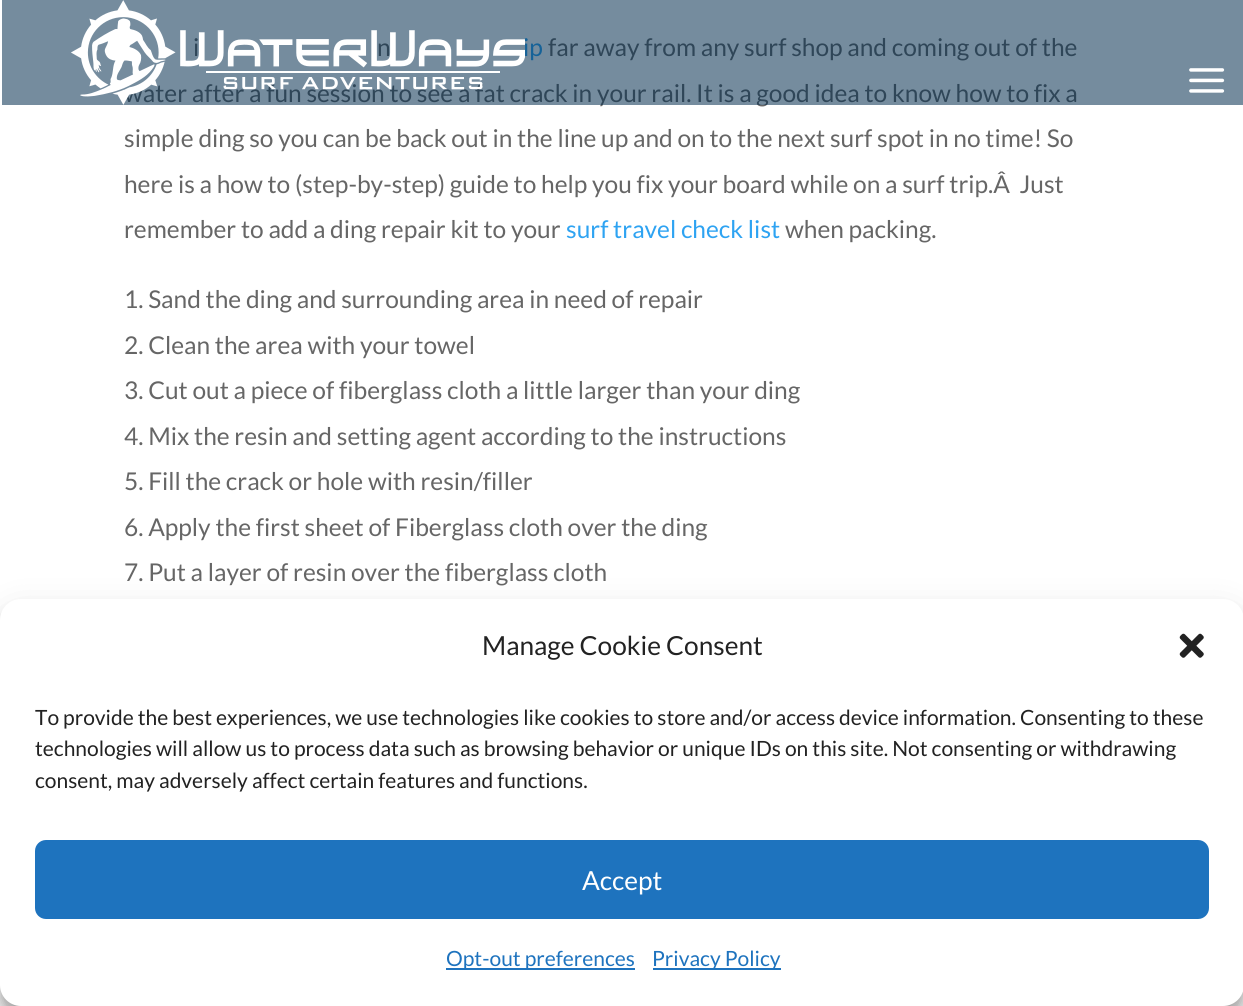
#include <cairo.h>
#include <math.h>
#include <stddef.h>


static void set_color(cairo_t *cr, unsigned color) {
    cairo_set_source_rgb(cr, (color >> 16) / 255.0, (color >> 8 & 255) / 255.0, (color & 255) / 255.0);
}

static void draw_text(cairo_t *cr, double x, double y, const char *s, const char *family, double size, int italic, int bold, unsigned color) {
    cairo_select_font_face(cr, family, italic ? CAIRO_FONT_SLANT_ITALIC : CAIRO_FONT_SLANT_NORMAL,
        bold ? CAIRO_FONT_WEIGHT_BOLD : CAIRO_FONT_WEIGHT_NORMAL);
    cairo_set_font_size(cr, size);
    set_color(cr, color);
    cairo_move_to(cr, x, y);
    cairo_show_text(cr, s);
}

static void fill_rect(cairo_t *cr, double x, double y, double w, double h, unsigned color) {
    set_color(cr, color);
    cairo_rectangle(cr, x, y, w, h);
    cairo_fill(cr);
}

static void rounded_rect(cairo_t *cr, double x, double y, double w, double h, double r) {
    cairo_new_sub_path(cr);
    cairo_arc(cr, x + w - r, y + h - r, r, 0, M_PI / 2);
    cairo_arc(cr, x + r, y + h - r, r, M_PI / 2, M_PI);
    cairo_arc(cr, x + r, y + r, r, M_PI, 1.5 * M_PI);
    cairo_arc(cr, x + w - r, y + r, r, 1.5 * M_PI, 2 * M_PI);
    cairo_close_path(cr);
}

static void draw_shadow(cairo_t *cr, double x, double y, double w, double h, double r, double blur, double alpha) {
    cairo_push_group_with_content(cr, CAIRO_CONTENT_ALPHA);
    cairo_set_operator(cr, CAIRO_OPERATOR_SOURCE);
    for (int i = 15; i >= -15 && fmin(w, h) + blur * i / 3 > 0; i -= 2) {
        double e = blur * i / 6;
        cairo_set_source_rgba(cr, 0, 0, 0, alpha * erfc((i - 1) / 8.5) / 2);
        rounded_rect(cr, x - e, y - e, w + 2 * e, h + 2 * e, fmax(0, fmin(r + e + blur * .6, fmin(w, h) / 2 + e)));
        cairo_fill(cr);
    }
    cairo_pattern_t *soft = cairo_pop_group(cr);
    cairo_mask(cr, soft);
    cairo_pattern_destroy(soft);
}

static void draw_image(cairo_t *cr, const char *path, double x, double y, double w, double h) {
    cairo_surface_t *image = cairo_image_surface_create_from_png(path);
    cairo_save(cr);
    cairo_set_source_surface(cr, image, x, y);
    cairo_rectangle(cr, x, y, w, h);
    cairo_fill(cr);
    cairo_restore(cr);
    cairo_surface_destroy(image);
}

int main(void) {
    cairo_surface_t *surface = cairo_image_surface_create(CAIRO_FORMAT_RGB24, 1243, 1006);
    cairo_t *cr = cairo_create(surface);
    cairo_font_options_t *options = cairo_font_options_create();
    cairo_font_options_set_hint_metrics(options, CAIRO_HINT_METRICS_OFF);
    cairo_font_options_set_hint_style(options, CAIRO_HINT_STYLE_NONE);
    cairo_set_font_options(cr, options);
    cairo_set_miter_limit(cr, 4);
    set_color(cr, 0xFFFFFF);
    cairo_paint(cr);
    draw_text(cr, 193, 56, "i", "Lato", 24.5, 0, 0, 0x666666);
    draw_text(cr, 377, 56, "n", "Lato", 24.5, 0, 0, 0x666666);
    draw_text(cr, 523, 56, "ip", "Lato", 24.5, 0, 0, 0x2EA3F2);
    draw_text(cr, 548, 56, "far away from any surf shop and coming out of the", "Lato", 24.5, 0, 0, 0x666666);
    draw_text(cr, 124, 102, "water after a fun session to see a fat crack in your rail. It is a good idea to know how to fix a", "Lato", 24.5, 0, 0, 0x666666);
    cairo_set_source_rgba(cr, 0, 0.173, 0.298, 0.54);
    cairo_rectangle(cr, 2, 0, 1241, 105);
    cairo_fill(cr);
    draw_image(cr, "assets/img1.png", 71, 0, 454, 105);
    draw_image(cr, "assets/img2.png", 1189, 68, 36, 25);
    draw_text(cr, 124, 147, "simple ding so you can be back out in the line up and on to the next surf spot in no time! So", "Lato", 24.5, 0, 0, 0x666666);
    draw_text(cr, 124, 193, "here is a how to (step-by-step) guide to help you fix your board while on a surf trip.Â  Just", "Lato", 24.5, 0, 0, 0x666666);
    draw_text(cr, 124, 238, "remember to add a ding repair kit to your", "Lato", 24.5, 0, 0, 0x666666);
    draw_text(cr, 566, 238, "surf travel check list", "Lato", 24.5, 0, 0, 0x2EA3F2);
    draw_text(cr, 785, 238, "when packing.", "Lato", 24.5, 0, 0, 0x666666);
    draw_text(cr, 124, 308, "1. Sand the ding and surrounding area in need of repair", "Lato", 24.5, 0, 0, 0x666666);
    draw_text(cr, 124, 354, "2. Clean the area with your towel", "Lato", 24.5, 0, 0, 0x666666);
    draw_text(cr, 124, 399, "3. Cut out a piece of fiberglass cloth a little larger than your ding", "Lato", 24.5, 0, 0, 0x666666);
    draw_text(cr, 124, 445, "4. Mix the resin and setting agent according to the instructions", "Lato", 24.5, 0, 0, 0x666666);
    draw_text(cr, 124, 490, "5. Fill the crack or hole with resin/filler", "Lato", 24.5, 0, 0, 0x666666);
    draw_text(cr, 124, 536, "6. Apply the first sheet of Fiberglass cloth over the ding", "Lato", 24.5, 0, 0, 0x666666);
    draw_text(cr, 124, 581, "7. Put a layer of resin over the fiberglass cloth", "Lato", 24.5, 0, 0, 0x666666);
    set_color(cr, 0x000000);
    draw_shadow(cr, 0, 609, 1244, 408, 21, 5, 0.23);
    draw_shadow(cr, 0, 616, 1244, 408, 21, 17.5, 0.19);
    set_color(cr, 0xFFFFFF);
    rounded_rect(cr, 0, 599, 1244, 407, 21);
    cairo_fill(cr);
    draw_text(cr, 482, 655, "Manage Cookie Consent", "Lato", 26.25, 0, 0, 0x222222);
    draw_image(cr, "assets/img3.png", 1179, 633, 25, 25);
    draw_text(cr, 35, 725, "To provide the best experiences, we use technologies like cookies to store and/or access device information. Consenting to these", "Lato", 21, 0, 0, 0x222222);
    draw_text(cr, 35, 756, "technologies will allow us to process data such as browsing behavior or unique IDs on this site. Not consenting or withdrawing", "Lato", 21, 0, 0, 0x222222);
    draw_text(cr, 35, 788, "consent, may adversely affect certain features and functions.", "Lato", 21, 0, 0, 0x222222);
    set_color(cr, 0x1E73BE);
    rounded_rect(cr, 36, 841, 1172, 77, 10);
    cairo_fill_preserve(cr);
    cairo_stroke(cr);
    draw_text(cr, 582, 890, "Accept", "Lato", 26.25, 0, 0, 0xFFFFFF);
    fill_rect(cr, 446, 968, 189, 2, 0x1E73BE);
    draw_text(cr, 446, 966, "Opt-out preferences", "Lato", 21, 0, 0, 0x1E73BE);
    fill_rect(cr, 653, 968, 128, 2, 0x1E73BE);
    draw_text(cr, 652, 966, "Privacy Policy", "Lato", 21, 0, 0, 0x1E73BE);
    cairo_surface_write_to_png(surface, "output.png");
    cairo_font_options_destroy(options);
    cairo_destroy(cr);
    cairo_surface_destroy(surface);
    return 0;
}
